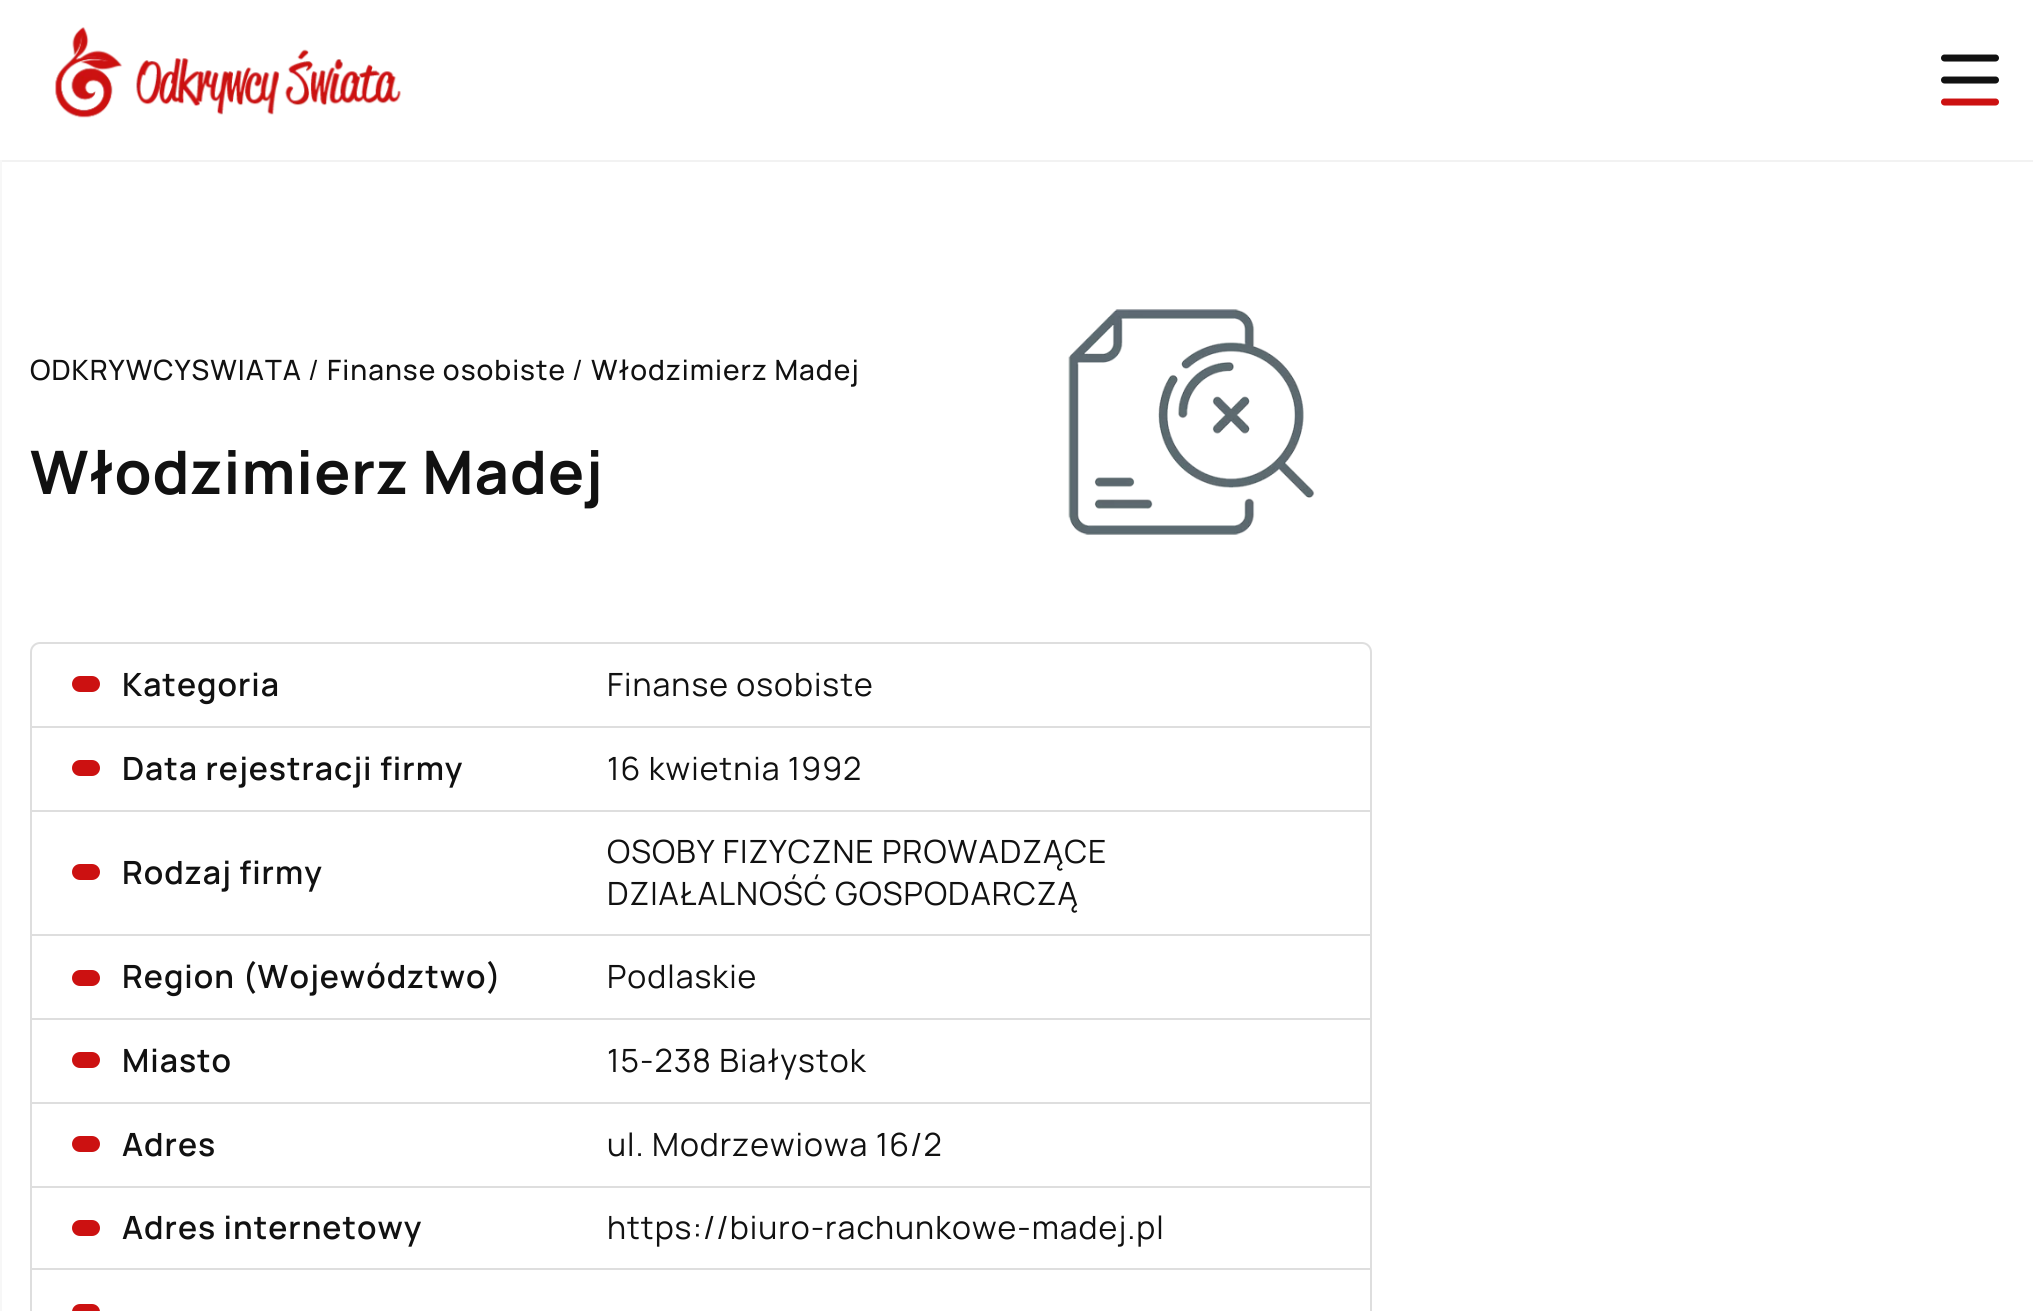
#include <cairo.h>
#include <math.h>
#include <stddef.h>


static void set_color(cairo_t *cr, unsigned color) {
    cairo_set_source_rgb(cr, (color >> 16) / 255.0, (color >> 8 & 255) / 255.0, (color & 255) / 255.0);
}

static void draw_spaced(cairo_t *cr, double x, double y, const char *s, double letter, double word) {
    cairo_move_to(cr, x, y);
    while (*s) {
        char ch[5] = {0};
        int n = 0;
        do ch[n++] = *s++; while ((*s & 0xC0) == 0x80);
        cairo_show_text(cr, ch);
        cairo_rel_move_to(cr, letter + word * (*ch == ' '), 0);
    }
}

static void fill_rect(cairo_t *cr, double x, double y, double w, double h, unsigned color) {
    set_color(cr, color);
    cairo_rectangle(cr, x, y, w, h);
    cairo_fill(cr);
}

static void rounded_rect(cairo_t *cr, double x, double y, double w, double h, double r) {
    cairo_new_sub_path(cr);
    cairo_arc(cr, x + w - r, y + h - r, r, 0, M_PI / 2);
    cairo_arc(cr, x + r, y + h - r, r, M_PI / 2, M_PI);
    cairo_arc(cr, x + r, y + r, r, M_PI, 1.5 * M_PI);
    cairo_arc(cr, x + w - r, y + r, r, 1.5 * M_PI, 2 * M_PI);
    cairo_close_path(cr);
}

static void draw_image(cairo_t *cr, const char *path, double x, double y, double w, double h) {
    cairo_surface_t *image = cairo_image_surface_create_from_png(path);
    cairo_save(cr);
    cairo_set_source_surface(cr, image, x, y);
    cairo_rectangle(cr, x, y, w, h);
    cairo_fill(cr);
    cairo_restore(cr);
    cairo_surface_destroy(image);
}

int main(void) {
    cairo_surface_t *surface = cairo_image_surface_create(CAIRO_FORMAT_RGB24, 2033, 1311);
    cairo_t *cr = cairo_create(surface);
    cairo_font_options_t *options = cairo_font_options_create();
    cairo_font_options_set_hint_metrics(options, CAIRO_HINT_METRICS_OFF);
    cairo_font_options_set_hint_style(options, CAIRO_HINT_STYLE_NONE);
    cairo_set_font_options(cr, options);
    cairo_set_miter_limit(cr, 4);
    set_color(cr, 0xFFFFFF);
    cairo_paint(cr);
    fill_rect(cr, 0, 160, 2033, 2, 0xF2F2F2);
    draw_image(cr, "assets/img1.png", 55, 27, 346, 91);
    cairo_new_path(cr);
    cairo_move_to(cr, 1944.5, 58);
    cairo_line_to(cr, 1995.5, 58);
    cairo_move_to(cr, 1944.5, 80);
    cairo_line_to(cr, 1995.5, 80);
    set_color(cr, 0x111111);
    cairo_set_line_width(cr, 7);
    cairo_set_line_cap(cr, CAIRO_LINE_CAP_ROUND);
    cairo_stroke(cr);
    cairo_new_path(cr);
    cairo_move_to(cr, 1995.5, 102);
    cairo_line_to(cr, 1944.5, 102);
    set_color(cr, 0xCC1111);
    cairo_stroke(cr);
    fill_rect(cr, 0, 160, 2, 1151, 0xF7F7F7);
    cairo_select_font_face(cr, "Manrope Medium", CAIRO_FONT_SLANT_NORMAL, CAIRO_FONT_WEIGHT_NORMAL);
    cairo_set_font_size(cr, 28);
    set_color(cr, 0x111111);
    draw_spaced(cr, 30, 380, "ODKRYWCYSWIATA", 1, 0);
    cairo_select_font_face(cr, "Manrope", CAIRO_FONT_SLANT_NORMAL, CAIRO_FONT_WEIGHT_NORMAL);
    draw_spaced(cr, 308, 380, "/", 1, 0);
    cairo_select_font_face(cr, "Manrope Medium", CAIRO_FONT_SLANT_NORMAL, CAIRO_FONT_WEIGHT_NORMAL);
    draw_spaced(cr, 327, 380, "Finanse osobiste", 1, 0);
    cairo_select_font_face(cr, "Manrope", CAIRO_FONT_SLANT_NORMAL, CAIRO_FONT_WEIGHT_NORMAL);
    draw_spaced(cr, 572, 380, "/", 1, 0);
    cairo_select_font_face(cr, "Manrope Medium", CAIRO_FONT_SLANT_NORMAL, CAIRO_FONT_WEIGHT_NORMAL);
    draw_spaced(cr, 591, 380, "Włodzimierz Madej", 1, 0);
    cairo_select_font_face(cr, "Manrope", CAIRO_FONT_SLANT_NORMAL, CAIRO_FONT_WEIGHT_BOLD);
    cairo_set_font_size(cr, 60);
    draw_spaced(cr, 30, 494, "Włodzimierz Madej", 1, 0);
    draw_image(cr, "assets/img2.png", 1068, 309, 247, 226);
    rounded_rect(cr, 31, 643, 1340, 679, 9);
    set_color(cr, 0xDEDEDE);
    cairo_set_line_width(cr, 2);
    cairo_set_line_cap(cr, CAIRO_LINE_CAP_BUTT);
    cairo_stroke(cr);
    fill_rect(cr, 32, 726, 1338, 2, 0xDEDEDE);
    set_color(cr, 0xCC1111);
    rounded_rect(cr, 72, 676, 28, 16, 8);
    cairo_fill(cr);
    cairo_select_font_face(cr, "Manrope SemiBold", CAIRO_FONT_SLANT_NORMAL, CAIRO_FONT_WEIGHT_NORMAL);
    cairo_set_font_size(cr, 32);
    set_color(cr, 0x111111);
    draw_spaced(cr, 122, 696, "Kategoria", 1, 0);
    cairo_select_font_face(cr, "Manrope", CAIRO_FONT_SLANT_NORMAL, CAIRO_FONT_WEIGHT_NORMAL);
    draw_spaced(cr, 607, 696, "Finanse osobiste", 1, 0);
    fill_rect(cr, 32, 810, 1338, 2, 0xDEDEDE);
    set_color(cr, 0xCC1111);
    rounded_rect(cr, 72, 760, 28, 16, 8);
    cairo_fill(cr);
    cairo_select_font_face(cr, "Manrope SemiBold", CAIRO_FONT_SLANT_NORMAL, CAIRO_FONT_WEIGHT_NORMAL);
    set_color(cr, 0x111111);
    draw_spaced(cr, 122, 780, "Data rejestracji firmy", 1, 0);
    cairo_select_font_face(cr, "Manrope", CAIRO_FONT_SLANT_NORMAL, CAIRO_FONT_WEIGHT_NORMAL);
    draw_spaced(cr, 607, 780, "16 kwietnia 1992", 1, 0);
    fill_rect(cr, 32, 934, 1338, 2, 0xDEDEDE);
    set_color(cr, 0xCC1111);
    rounded_rect(cr, 72, 864, 28, 16, 8);
    cairo_fill(cr);
    cairo_select_font_face(cr, "Manrope SemiBold", CAIRO_FONT_SLANT_NORMAL, CAIRO_FONT_WEIGHT_NORMAL);
    set_color(cr, 0x111111);
    draw_spaced(cr, 122, 884, "Rodzaj firmy", 1, 0);
    cairo_select_font_face(cr, "Manrope", CAIRO_FONT_SLANT_NORMAL, CAIRO_FONT_WEIGHT_NORMAL);
    draw_spaced(cr, 607, 863, "OSOBY FIZYCZNE PROWADZĄCE", 1, 0);
    draw_spaced(cr, 607, 905, "DZIAŁALNOŚĆ GOSPODARCZĄ", 1, 0);
    fill_rect(cr, 32, 1018, 1338, 2, 0xDEDEDE);
    set_color(cr, 0xCC1111);
    rounded_rect(cr, 72, 970, 28, 16, 8);
    cairo_fill(cr);
    cairo_select_font_face(cr, "Manrope SemiBold", CAIRO_FONT_SLANT_NORMAL, CAIRO_FONT_WEIGHT_NORMAL);
    set_color(cr, 0x111111);
    draw_spaced(cr, 122, 988, "Region (Województwo)", 1, 0);
    cairo_select_font_face(cr, "Manrope", CAIRO_FONT_SLANT_NORMAL, CAIRO_FONT_WEIGHT_NORMAL);
    draw_spaced(cr, 607, 988, "Podlaskie", 1, 0);
    fill_rect(cr, 32, 1102, 1338, 2, 0xDEDEDE);
    set_color(cr, 0xCC1111);
    rounded_rect(cr, 72, 1052, 28, 16, 8);
    cairo_fill(cr);
    cairo_select_font_face(cr, "Manrope SemiBold", CAIRO_FONT_SLANT_NORMAL, CAIRO_FONT_WEIGHT_NORMAL);
    set_color(cr, 0x111111);
    draw_spaced(cr, 122, 1072, "Miasto", 1, 0);
    cairo_select_font_face(cr, "Manrope", CAIRO_FONT_SLANT_NORMAL, CAIRO_FONT_WEIGHT_NORMAL);
    draw_spaced(cr, 607, 1072, "15-238 Białystok", 1, 0);
    fill_rect(cr, 32, 1186, 1338, 2, 0xDEDEDE);
    set_color(cr, 0xCC1111);
    rounded_rect(cr, 72, 1136, 28, 16, 8);
    cairo_fill(cr);
    cairo_select_font_face(cr, "Manrope SemiBold", CAIRO_FONT_SLANT_NORMAL, CAIRO_FONT_WEIGHT_NORMAL);
    set_color(cr, 0x111111);
    draw_spaced(cr, 122, 1156, "Adres", 1, 0);
    cairo_select_font_face(cr, "Manrope", CAIRO_FONT_SLANT_NORMAL, CAIRO_FONT_WEIGHT_NORMAL);
    draw_spaced(cr, 607, 1156, "ul. Modrzewiowa 16/2", 1, 0);
    fill_rect(cr, 32, 1268, 1338, 2, 0xDEDEDE);
    set_color(cr, 0xCC1111);
    rounded_rect(cr, 72, 1220, 28, 16, 8);
    cairo_fill(cr);
    cairo_select_font_face(cr, "Manrope SemiBold", CAIRO_FONT_SLANT_NORMAL, CAIRO_FONT_WEIGHT_NORMAL);
    set_color(cr, 0x111111);
    draw_spaced(cr, 122, 1239, "Adres internetowy", 1, 0);
    cairo_select_font_face(cr, "Manrope", CAIRO_FONT_SLANT_NORMAL, CAIRO_FONT_WEIGHT_NORMAL);
    draw_spaced(cr, 607, 1239, "https://biuro-rachunkowe-madej.pl", 1, 0);
    set_color(cr, 0xCC1111);
    rounded_rect(cr, 72, 1304, 28, 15, 8);
    cairo_fill(cr);
    cairo_surface_write_to_png(surface, "output.png");
    cairo_font_options_destroy(options);
    cairo_destroy(cr);
    cairo_surface_destroy(surface);
    return 0;
}
